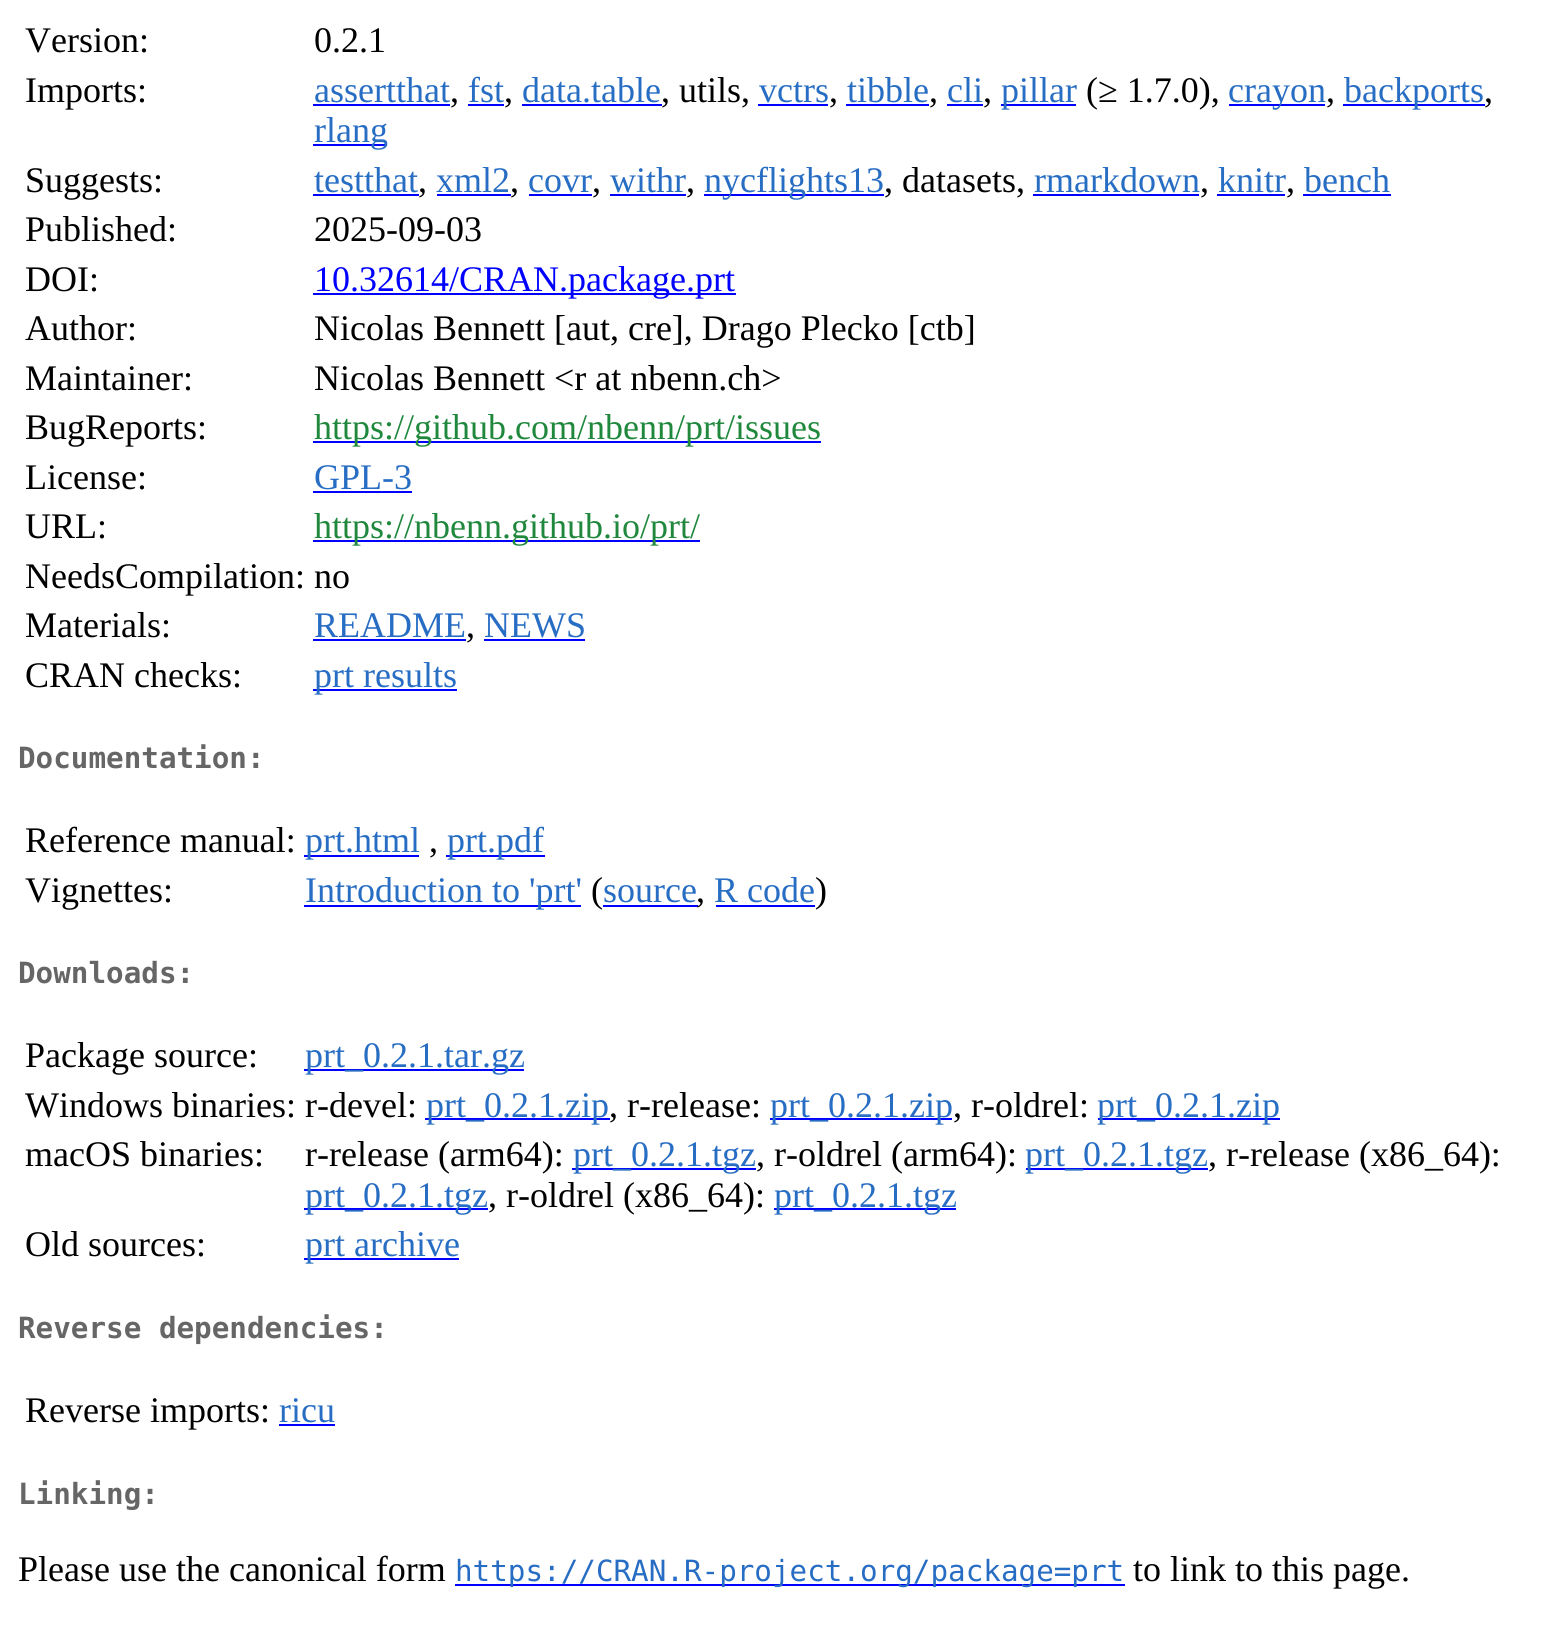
#include <cairo.h>
#include <math.h>
#include <stddef.h>


static void set_color(cairo_t *cr, unsigned color) {
    cairo_set_source_rgb(cr, (color >> 16) / 255.0, (color >> 8 & 255) / 255.0, (color & 255) / 255.0);
}

static void draw_text(cairo_t *cr, double x, double y, const char *s, const char *family, double size, int italic, int bold, unsigned color) {
    cairo_select_font_face(cr, family, italic ? CAIRO_FONT_SLANT_ITALIC : CAIRO_FONT_SLANT_NORMAL,
        bold ? CAIRO_FONT_WEIGHT_BOLD : CAIRO_FONT_WEIGHT_NORMAL);
    cairo_set_font_size(cr, size);
    set_color(cr, color);
    cairo_move_to(cr, x, y);
    cairo_show_text(cr, s);
}

static void fill_rect(cairo_t *cr, double x, double y, double w, double h, unsigned color) {
    set_color(cr, color);
    cairo_rectangle(cr, x, y, w, h);
    cairo_fill(cr);
}

int main(void) {
    cairo_surface_t *surface = cairo_image_surface_create(CAIRO_FORMAT_RGB24, 1567, 1626);
    cairo_t *cr = cairo_create(surface);
    cairo_font_options_t *options = cairo_font_options_create();
    cairo_font_options_set_hint_metrics(options, CAIRO_HINT_METRICS_OFF);
    cairo_font_options_set_hint_style(options, CAIRO_HINT_STYLE_NONE);
    cairo_set_font_options(cr, options);
    cairo_set_miter_limit(cr, 4);
    set_color(cr, 0xFFFFFF);
    cairo_paint(cr);
    draw_text(cr, 25, 52, "Version:", "Liberation Serif", 36, 0, 0, 0x000000);
    draw_text(cr, 314, 52, "0.2.1", "Liberation Serif", 36, 0, 0, 0x000000);
    draw_text(cr, 25, 102, "Imports:", "Liberation Serif", 36, 0, 0, 0x000000);
    draw_text(cr, 314, 102, "assertthat", "Liberation Serif", 36, 0, 0, 0x276DC3);
    fill_rect(cr, 313, 104, 137, 2, 0x0000FF);
    draw_text(cr, 450, 102, ",", "Liberation Serif", 36, 0, 0, 0x000000);
    draw_text(cr, 468, 102, "fst", "Liberation Serif", 36, 0, 0, 0x276DC3);
    fill_rect(cr, 468, 104, 36, 2, 0x0000FF);
    draw_text(cr, 504, 102, ",", "Liberation Serif", 36, 0, 0, 0x000000);
    draw_text(cr, 522, 102, "data.table", "Liberation Serif", 36, 0, 0, 0x276DC3);
    fill_rect(cr, 522, 104, 140, 2, 0x0000FF);
    draw_text(cr, 661, 102, ", utils,", "Liberation Serif", 36, 0, 0, 0x000000);
    draw_text(cr, 759, 102, "vctrs", "Liberation Serif", 36, 0, 0, 0x276DC3);
    fill_rect(cr, 758, 104, 70, 2, 0x0000FF);
    draw_text(cr, 829, 102, ",", "Liberation Serif", 36, 0, 0, 0x000000);
    draw_text(cr, 847, 102, "tibble", "Liberation Serif", 36, 0, 0, 0x276DC3);
    fill_rect(cr, 846, 104, 83, 2, 0x0000FF);
    draw_text(cr, 929, 102, ",", "Liberation Serif", 36, 0, 0, 0x000000);
    draw_text(cr, 947, 102, "cli", "Liberation Serif", 36, 0, 0, 0x276DC3);
    fill_rect(cr, 947, 104, 36, 2, 0x0000FF);
    draw_text(cr, 983, 102, ",", "Liberation Serif", 36, 0, 0, 0x000000);
    fill_rect(cr, 1001, 104, 75, 2, 0x0000FF);
    draw_text(cr, 1001, 102, "pillar", "Liberation Serif", 36, 0, 0, 0x276DC3);
    draw_text(cr, 1086, 102, "(≥ 1.7.0),", "Liberation Serif", 36, 0, 0, 0x000000);
    fill_rect(cr, 1229, 104, 96, 2, 0x0000FF);
    draw_text(cr, 1228, 102, "crayon", "Liberation Serif", 36, 0, 0, 0x276DC3);
    draw_text(cr, 1326, 102, ",", "Liberation Serif", 36, 0, 0, 0x000000);
    fill_rect(cr, 1343, 104, 142, 2, 0x0000FF);
    draw_text(cr, 1344, 102, "backports", "Liberation Serif", 36, 0, 0, 0x276DC3);
    draw_text(cr, 1484, 102, ",", "Liberation Serif", 36, 0, 0, 0x000000);
    fill_rect(cr, 313, 144, 74, 2, 0x0000FF);
    draw_text(cr, 314, 142, "rlang", "Liberation Serif", 36, 0, 0, 0x276DC3);
    draw_text(cr, 25, 192, "Suggests:", "Liberation Serif", 36, 0, 0, 0x000000);
    draw_text(cr, 314, 192, "testthat", "Liberation Serif", 36, 0, 0, 0x276DC3);
    fill_rect(cr, 313, 194, 106, 2, 0x0000FF);
    draw_text(cr, 418, 192, ",", "Liberation Serif", 36, 0, 0, 0x000000);
    draw_text(cr, 436, 192, "xml2", "Liberation Serif", 36, 0, 0, 0x276DC3);
    fill_rect(cr, 437, 194, 74, 2, 0x0000FF);
    draw_text(cr, 510, 192, ",", "Liberation Serif", 36, 0, 0, 0x000000);
    draw_text(cr, 528, 192, "covr", "Liberation Serif", 36, 0, 0, 0x276DC3);
    fill_rect(cr, 529, 194, 63, 2, 0x0000FF);
    draw_text(cr, 592, 192, ",", "Liberation Serif", 36, 0, 0, 0x000000);
    draw_text(cr, 610, 192, "withr", "Liberation Serif", 36, 0, 0, 0x276DC3);
    fill_rect(cr, 610, 194, 76, 2, 0x0000FF);
    draw_text(cr, 686, 192, ",", "Liberation Serif", 36, 0, 0, 0x000000);
    fill_rect(cr, 704, 194, 180, 2, 0x0000FF);
    draw_text(cr, 704, 192, "nycflights13", "Liberation Serif", 36, 0, 0, 0x276DC3);
    draw_text(cr, 884, 192, ", datasets,", "Liberation Serif", 36, 0, 0, 0x000000);
    draw_text(cr, 1034, 192, "rmarkdown", "Liberation Serif", 36, 0, 0, 0x276DC3);
    fill_rect(cr, 1033, 194, 166, 2, 0x0000FF);
    draw_text(cr, 1200, 192, ",", "Liberation Serif", 36, 0, 0, 0x000000);
    draw_text(cr, 1218, 192, "knitr", "Liberation Serif", 36, 0, 0, 0x276DC3);
    fill_rect(cr, 1217, 194, 68, 2, 0x0000FF);
    draw_text(cr, 1286, 192, ",", "Liberation Serif", 36, 0, 0, 0x000000);
    draw_text(cr, 1304, 192, "bench", "Liberation Serif", 36, 0, 0, 0x276DC3);
    fill_rect(cr, 1303, 194, 88, 2, 0x0000FF);
    draw_text(cr, 25, 241, "Published:", "Liberation Serif", 36, 0, 0, 0x000000);
    draw_text(cr, 314, 241, "2025-09-03", "Liberation Serif", 36, 0, 0, 0x000000);
    draw_text(cr, 25, 291, "DOI:", "Liberation Serif", 36, 0, 0, 0x000000);
    fill_rect(cr, 313, 293, 423, 2, 0x0000FF);
    draw_text(cr, 314, 291, "10.32614/CRAN.package.prt", "Liberation Serif", 36, 0, 0, 0x0000FF);
    draw_text(cr, 25, 340, "Author:", "Liberation Serif", 36, 0, 0, 0x000000);
    draw_text(cr, 314, 340, "Nicolas Bennett [aut, cre], Drago Plecko [ctb]", "Liberation Serif", 36, 0, 0, 0x000000);
    draw_text(cr, 25, 390, "Maintainer:", "Liberation Serif", 36, 0, 0, 0x000000);
    draw_text(cr, 314, 390, "Nicolas Bennett <r at nbenn.ch>", "Liberation Serif", 36, 0, 0, 0x000000);
    draw_text(cr, 25, 439, "BugReports:", "Liberation Serif", 36, 0, 0, 0x000000);
    fill_rect(cr, 313, 441, 508, 2, 0x0000FF);
    draw_text(cr, 314, 439, "https://github.com/nbenn/prt/issues", "Liberation Serif", 36, 0, 0, 0x1F883D);
    draw_text(cr, 25, 489, "License:", "Liberation Serif", 36, 0, 0, 0x000000);
    draw_text(cr, 314, 489, "GPL-3", "Liberation Serif", 36, 0, 0, 0x276DC3);
    fill_rect(cr, 313, 491, 99, 2, 0x0000FF);
    draw_text(cr, 25, 538, "URL:", "Liberation Serif", 36, 0, 0, 0x000000);
    fill_rect(cr, 313, 540, 387, 2, 0x0000FF);
    draw_text(cr, 314, 538, "https://nbenn.github.io/prt/", "Liberation Serif", 36, 0, 0, 0x1F883D);
    draw_text(cr, 25, 588, "NeedsCompilation: no", "Liberation Serif", 36, 0, 0, 0x000000);
    draw_text(cr, 25, 637, "Materials:", "Liberation Serif", 36, 0, 0, 0x000000);
    draw_text(cr, 314, 637, "README", "Liberation Serif", 36, 0, 0, 0x276DC3);
    fill_rect(cr, 313, 639, 153, 2, 0x0000FF);
    draw_text(cr, 466, 637, ",", "Liberation Serif", 36, 0, 0, 0x000000);
    draw_text(cr, 484, 637, "NEWS", "Liberation Serif", 36, 0, 0, 0x276DC3);
    fill_rect(cr, 484, 639, 101, 2, 0x0000FF);
    draw_text(cr, 25, 687, "CRAN checks:", "Liberation Serif", 36, 0, 0, 0x000000);
    fill_rect(cr, 313, 689, 144, 2, 0x0000FF);
    draw_text(cr, 314, 687, "prt results", "Liberation Serif", 36, 0, 0, 0x276DC3);
    draw_text(cr, 18, 768, "Documentation:", "DejaVu Sans Mono", 29.25, 0, 1, 0x666666);
    draw_text(cr, 25, 852, "Reference manual:", "Liberation Serif", 36, 0, 0, 0x000000);
    fill_rect(cr, 304, 855, 115, 2, 0x0000FF);
    draw_text(cr, 305, 852, "prt.html", "Liberation Serif", 36, 0, 0, 0x276DC3);
    draw_text(cr, 429, 852, ",", "Liberation Serif", 36, 0, 0, 0x000000);
    fill_rect(cr, 446, 855, 99, 2, 0x0000FF);
    draw_text(cr, 447, 852, "prt.pdf", "Liberation Serif", 36, 0, 0, 0x276DC3);
    draw_text(cr, 25, 902, "Vignettes:", "Liberation Serif", 36, 0, 0, 0x000000);
    fill_rect(cr, 304, 905, 277, 2, 0x0000FF);
    draw_text(cr, 305, 902, "Introduction to 'prt'", "Liberation Serif", 36, 0, 0, 0x276DC3);
    draw_text(cr, 591, 902, "(", "Liberation Serif", 36, 0, 0, 0x000000);
    draw_text(cr, 603, 902, "source", "Liberation Serif", 36, 0, 0, 0x276DC3);
    fill_rect(cr, 603, 905, 95, 2, 0x0000FF);
    draw_text(cr, 696, 902, ",", "Liberation Serif", 36, 0, 0, 0x000000);
    draw_text(cr, 714, 902, "R code", "Liberation Serif", 36, 0, 0, 0x276DC3);
    fill_rect(cr, 716, 905, 99, 2, 0x0000FF);
    draw_text(cr, 815, 902, ")", "Liberation Serif", 36, 0, 0, 0x000000);
    draw_text(cr, 18, 983, "Downloads:", "DejaVu Sans Mono", 29.25, 0, 1, 0x666666);
    draw_text(cr, 25, 1067, "Package source:", "Liberation Serif", 36, 0, 0, 0x000000);
    fill_rect(cr, 304, 1069, 220, 2, 0x0000FF);
    draw_text(cr, 305, 1067, "prt_0.2.1.tar.gz", "Liberation Serif", 36, 0, 0, 0x276DC3);
    draw_text(cr, 25, 1117, "Windows binaries: r-devel:", "Liberation Serif", 36, 0, 0, 0x000000);
    fill_rect(cr, 425, 1118, 185, 2, 0x0000FF);
    draw_text(cr, 426, 1117, "prt_0.2.1.zip", "Liberation Serif", 36, 0, 0, 0x276DC3);
    draw_text(cr, 609, 1117, ", r-release:", "Liberation Serif", 36, 0, 0, 0x000000);
    fill_rect(cr, 770, 1118, 182, 2, 0x0000FF);
    draw_text(cr, 770, 1117, "prt_0.2.1.zip", "Liberation Serif", 36, 0, 0, 0x276DC3);
    draw_text(cr, 953, 1117, ", r-oldrel:", "Liberation Serif", 36, 0, 0, 0x000000);
    fill_rect(cr, 1098, 1118, 182, 2, 0x0000FF);
    draw_text(cr, 1097, 1117, "prt_0.2.1.zip", "Liberation Serif", 36, 0, 0, 0x276DC3);
    draw_text(cr, 25, 1166, "macOS binaries:", "Liberation Serif", 36, 0, 0, 0x000000);
    draw_text(cr, 305, 1166, "r-release (arm64):", "Liberation Serif", 36, 0, 0, 0x000000);
    fill_rect(cr, 572, 1168, 184, 2, 0x0000FF);
    draw_text(cr, 573, 1166, "prt_0.2.1.tgz", "Liberation Serif", 36, 0, 0, 0x276DC3);
    draw_text(cr, 756, 1166, ", r-oldrel (arm64):", "Liberation Serif", 36, 0, 0, 0x000000);
    fill_rect(cr, 1026, 1168, 182, 2, 0x0000FF);
    draw_text(cr, 1025, 1166, "prt_0.2.1.tgz", "Liberation Serif", 36, 0, 0, 0x276DC3);
    draw_text(cr, 1208, 1166, ", r-release (x86_64):", "Liberation Serif", 36, 0, 0, 0x000000);
    fill_rect(cr, 304, 1208, 184, 2, 0x0000FF);
    draw_text(cr, 305, 1207, "prt_0.2.1.tgz", "Liberation Serif", 36, 0, 0, 0x276DC3);
    draw_text(cr, 488, 1207, ", r-oldrel (x86_64):", "Liberation Serif", 36, 0, 0, 0x000000);
    fill_rect(cr, 774, 1208, 182, 2, 0x0000FF);
    draw_text(cr, 774, 1207, "prt_0.2.1.tgz", "Liberation Serif", 36, 0, 0, 0x276DC3);
    draw_text(cr, 25, 1256, "Old sources:", "Liberation Serif", 36, 0, 0, 0x000000);
    fill_rect(cr, 304, 1258, 155, 2, 0x0000FF);
    draw_text(cr, 305, 1256, "prt archive", "Liberation Serif", 36, 0, 0, 0x276DC3);
    draw_text(cr, 18, 1338, "Reverse dependencies:", "DejaVu Sans Mono", 29.25, 0, 1, 0x666666);
    draw_text(cr, 25, 1422, "Reverse imports:", "Liberation Serif", 36, 0, 0, 0x000000);
    draw_text(cr, 279, 1422, "ricu", "Liberation Serif", 36, 0, 0, 0x276DC3);
    fill_rect(cr, 279, 1424, 56, 2, 0x0000FF);
    draw_text(cr, 18, 1504, "Linking:", "DejaVu Sans Mono", 29.25, 0, 1, 0x666666);
    draw_text(cr, 18, 1581, "Please use the canonical form", "Liberation Serif", 36, 0, 0, 0x000000);
    fill_rect(cr, 455, 1584, 670, 2, 0x0000FF);
    draw_text(cr, 455, 1581, "https://CRAN.R-project.org/package=prt", "DejaVu Sans Mono", 29.25, 0, 0, 0x276DC3);
    draw_text(cr, 1133, 1581, "to link to this page.", "Liberation Serif", 36, 0, 0, 0x000000);
    cairo_surface_write_to_png(surface, "output.png");
    cairo_font_options_destroy(options);
    cairo_destroy(cr);
    cairo_surface_destroy(surface);
    return 0;
}
